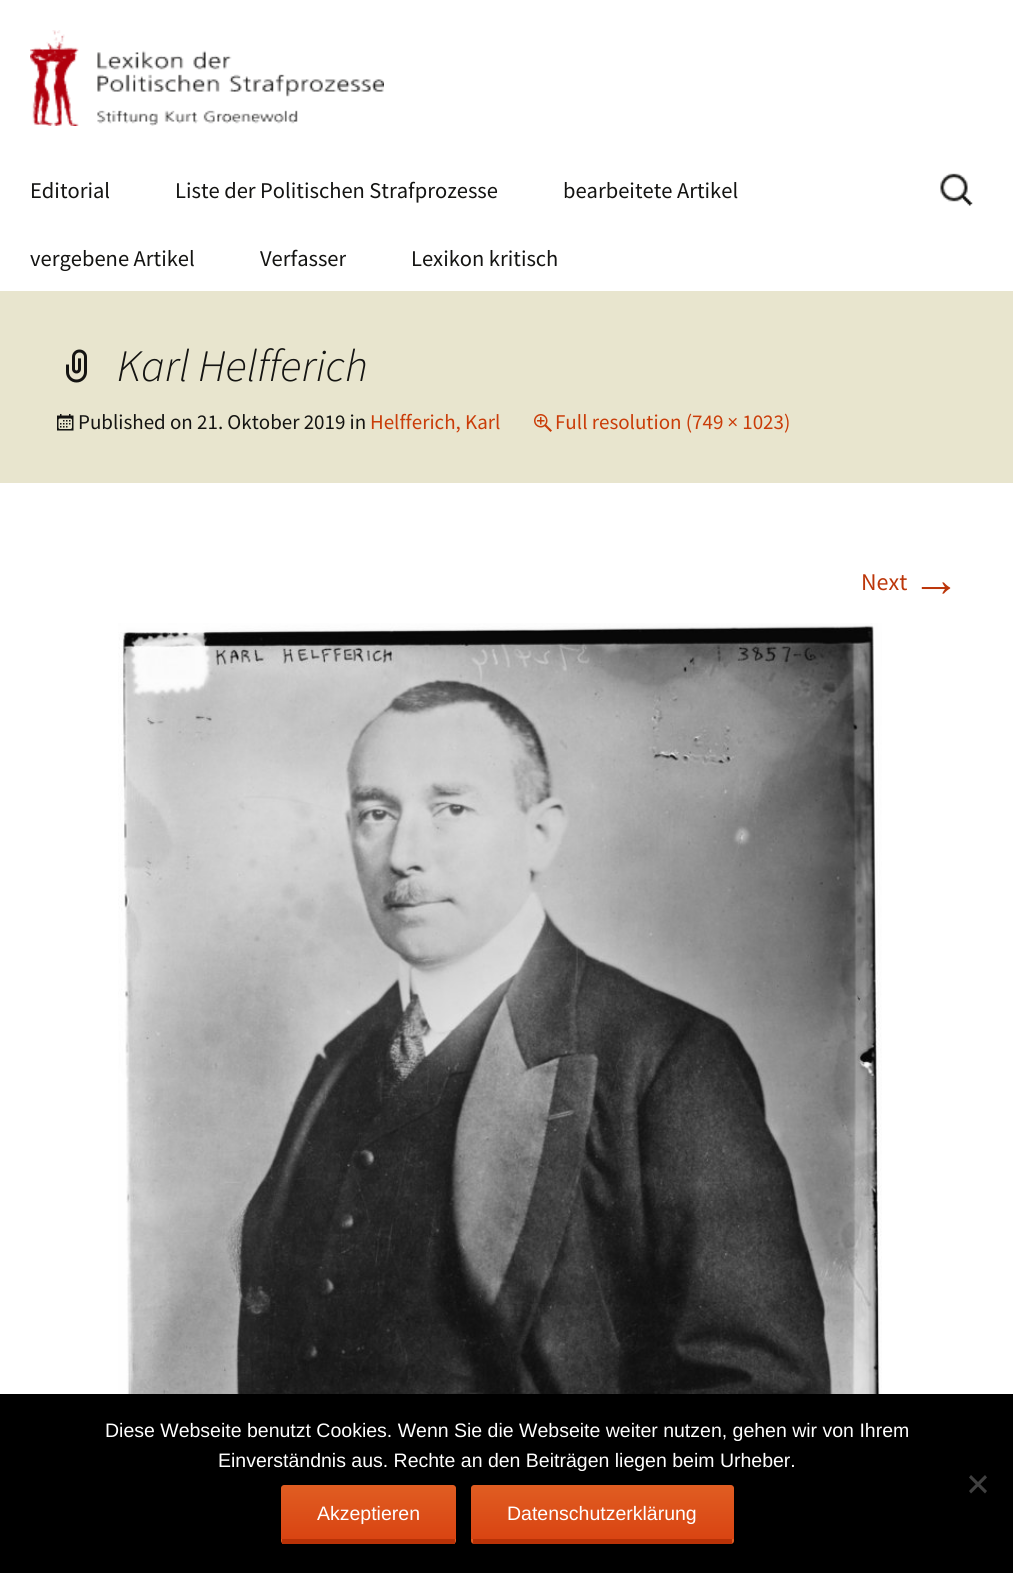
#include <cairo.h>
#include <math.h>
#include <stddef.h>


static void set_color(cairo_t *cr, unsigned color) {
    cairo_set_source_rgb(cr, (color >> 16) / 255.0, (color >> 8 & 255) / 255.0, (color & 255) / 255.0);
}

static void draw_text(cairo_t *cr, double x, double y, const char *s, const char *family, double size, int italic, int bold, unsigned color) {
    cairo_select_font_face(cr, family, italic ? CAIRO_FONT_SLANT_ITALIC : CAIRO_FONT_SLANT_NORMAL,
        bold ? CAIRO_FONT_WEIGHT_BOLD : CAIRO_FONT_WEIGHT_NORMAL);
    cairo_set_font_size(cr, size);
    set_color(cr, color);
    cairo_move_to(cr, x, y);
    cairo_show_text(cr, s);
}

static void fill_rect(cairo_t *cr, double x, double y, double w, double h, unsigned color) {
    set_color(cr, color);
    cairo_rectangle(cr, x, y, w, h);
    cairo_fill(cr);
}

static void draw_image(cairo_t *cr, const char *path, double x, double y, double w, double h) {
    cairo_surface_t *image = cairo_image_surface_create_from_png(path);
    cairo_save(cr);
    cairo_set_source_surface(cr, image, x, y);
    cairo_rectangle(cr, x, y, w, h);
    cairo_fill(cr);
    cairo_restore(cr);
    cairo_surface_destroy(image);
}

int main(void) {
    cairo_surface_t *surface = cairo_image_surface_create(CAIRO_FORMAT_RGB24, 1013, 1573);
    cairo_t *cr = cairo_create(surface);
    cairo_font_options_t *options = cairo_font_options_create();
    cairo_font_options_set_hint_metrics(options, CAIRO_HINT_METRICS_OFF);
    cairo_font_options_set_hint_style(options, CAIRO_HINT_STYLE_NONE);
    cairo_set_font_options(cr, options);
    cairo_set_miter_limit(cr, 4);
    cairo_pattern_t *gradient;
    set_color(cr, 0xFFFFFF);
    cairo_paint(cr);
    draw_image(cr, "assets/img1.png", 30, 30, 354, 96);
    draw_text(cr, 30, 198, "Editorial", "Source Sans Pro", 22.5, 0, 0, 0x141412);
    draw_text(cr, 175, 198, "Liste der Politischen Strafprozesse", "Source Sans Pro", 22.5, 0, 0, 0x141412);
    draw_text(cr, 563, 198, "bearbeitete Artikel", "Source Sans Pro", 22.5, 0, 0, 0x141412);
    draw_text(cr, 30, 266, "vergebene Artikel", "Source Sans Pro", 22.5, 0, 0, 0x141412);
    draw_text(cr, 260, 266, "Verfasser", "Source Sans Pro", 22.5, 0, 0, 0x141412);
    draw_text(cr, 411, 266, "Lexikon kritisch", "Source Sans Pro", 22.5, 0, 0, 0x141412);
    draw_image(cr, "assets/img2.png", 940, 173, 33, 33);
    fill_rect(cr, 0, 291, 1013, 192, 0xE8E5CE);
    draw_image(cr, "assets/img3.png", 66, 349, 21, 34);
    draw_text(cr, 117, 381, "Karl Helfferich", "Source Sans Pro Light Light", 45, 1, 0, 0x141412);
    draw_image(cr, "assets/img4.png", 57, 414, 17, 17);
    draw_text(cr, 78, 429, "Published on 21. Oktober 2019 in", "Source Sans Pro", 21, 0, 0, 0x141412);
    draw_text(cr, 370, 429, "Helfferich, Karl", "Source Sans Pro", 21, 0, 0, 0xCA3C08);
    draw_image(cr, "assets/img5.png", 534, 414, 18, 18);
    draw_text(cr, 555, 429, "Full resolution (749 × 1023)", "Source Sans Pro", 21, 0, 0, 0xCA3C08);
    draw_text(cr, 861, 590, "Next", "Source Sans Pro", 24, 0, 0, 0xBC360A);
    draw_text(cr, 912, 596, "→", "Liberation Sans", 48, 0, 0, 0xBC360A);
    draw_image(cr, "assets/img6.png", 118, 623, 764, 771);
    fill_rect(cr, 0, 1394, 1013, 179, 0x000000);
    draw_text(cr, 105, 1437, "Diese Webseite benutzt Cookies. Wenn Sie die Webseite weiter nutzen, gehen wir von Ihrem", "Liberation Sans", 19.5, 0, 0, 0xFFFFFF);
    draw_text(cr, 218, 1467, "Einverständnis aus. Rechte an den Beiträgen liegen beim Urheber.", "Liberation Sans", 19.5, 0, 0, 0xFFFFFF);
    set_color(cr, 0x404040);
    cairo_new_path(cr);
    cairo_move_to(cr, 985, 1475);
    cairo_line_to(cr, 987, 1477.5);
    cairo_line_to(cr, 971, 1493.5);
    cairo_line_to(cr, 969, 1491);
    cairo_close_path(cr);
    cairo_fill(cr);
    cairo_new_path(cr);
    cairo_move_to(cr, 969, 1477.5);
    cairo_line_to(cr, 971, 1475);
    cairo_line_to(cr, 987, 1491);
    cairo_line_to(cr, 985, 1493.5);
    cairo_close_path(cr);
    cairo_fill(cr);
    gradient = cairo_pattern_create_linear(368, 1485, 368, 1539);
    cairo_pattern_add_color_stop_rgba(gradient, 0, 0.878, 0.365, 0.133, 1);
    cairo_pattern_add_color_stop_rgba(gradient, 1, 0.851, 0.267, 0.071, 1);
    cairo_set_source(cr, gradient);
    cairo_pattern_destroy(gradient);
    cairo_new_path(cr);
    cairo_move_to(cr, 284, 1485);
    cairo_line_to(cr, 453, 1485);
    cairo_curve_to(cr, 454.5, 1485, 456, 1486.5, 456, 1488);
    cairo_line_to(cr, 456, 1539);
    cairo_line_to(cr, 281, 1539);
    cairo_line_to(cr, 281, 1488);
    cairo_curve_to(cr, 281, 1486.5, 282.5, 1485, 284, 1485);
    cairo_close_path(cr);
    cairo_fill(cr);
    gradient = cairo_pattern_create_linear(368, 1539, 368, 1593);
    cairo_pattern_add_color_stop_rgba(gradient, 0, 0.878, 0.365, 0.133, 1);
    cairo_pattern_add_color_stop_rgba(gradient, 1, 0.851, 0.267, 0.071, 1);
    cairo_set_source(cr, gradient);
    cairo_pattern_destroy(gradient);
    cairo_new_path(cr);
    cairo_move_to(cr, 281, 1539);
    cairo_line_to(cr, 456, 1539);
    cairo_line_to(cr, 456, 1541);
    cairo_curve_to(cr, 456, 1542.5, 454.5, 1544, 453, 1544);
    cairo_line_to(cr, 284, 1544);
    cairo_curve_to(cr, 282.5, 1544, 281, 1542.5, 281, 1541);
    cairo_close_path(cr);
    cairo_fill(cr);
    fill_rect(cr, 282, 1539, 173, 5, 0xB93207);
    draw_text(cr, 317, 1520, "Akzeptieren", "Liberation Sans", 19.5, 0, 0, 0xFFFFFF);
    gradient = cairo_pattern_create_linear(602, 1485, 602, 1539);
    cairo_pattern_add_color_stop_rgba(gradient, 0, 0.878, 0.365, 0.133, 1);
    cairo_pattern_add_color_stop_rgba(gradient, 1, 0.851, 0.267, 0.071, 1);
    cairo_set_source(cr, gradient);
    cairo_pattern_destroy(gradient);
    cairo_new_path(cr);
    cairo_move_to(cr, 474, 1485);
    cairo_line_to(cr, 731, 1485);
    cairo_curve_to(cr, 732.5, 1485, 734, 1486.5, 734, 1488);
    cairo_line_to(cr, 734, 1539);
    cairo_line_to(cr, 471, 1539);
    cairo_line_to(cr, 471, 1488);
    cairo_curve_to(cr, 471, 1486.5, 472.5, 1485, 474, 1485);
    cairo_close_path(cr);
    cairo_fill(cr);
    gradient = cairo_pattern_create_linear(602, 1539, 602, 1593);
    cairo_pattern_add_color_stop_rgba(gradient, 0, 0.878, 0.365, 0.133, 1);
    cairo_pattern_add_color_stop_rgba(gradient, 1, 0.851, 0.267, 0.071, 1);
    cairo_set_source(cr, gradient);
    cairo_pattern_destroy(gradient);
    cairo_new_path(cr);
    cairo_move_to(cr, 471, 1539);
    cairo_line_to(cr, 734, 1539);
    cairo_line_to(cr, 734, 1541);
    cairo_curve_to(cr, 734, 1542.5, 732.5, 1544, 731, 1544);
    cairo_line_to(cr, 474, 1544);
    cairo_curve_to(cr, 472.5, 1544, 471, 1542.5, 471, 1541);
    cairo_close_path(cr);
    cairo_fill(cr);
    fill_rect(cr, 473, 1539, 259, 5, 0xB93207);
    draw_text(cr, 507, 1520, "Datenschutzerklärung", "Liberation Sans", 19.5, 0, 0, 0xFFFFFF);
    cairo_surface_write_to_png(surface, "output.png");
    cairo_font_options_destroy(options);
    cairo_destroy(cr);
    cairo_surface_destroy(surface);
    return 0;
}
